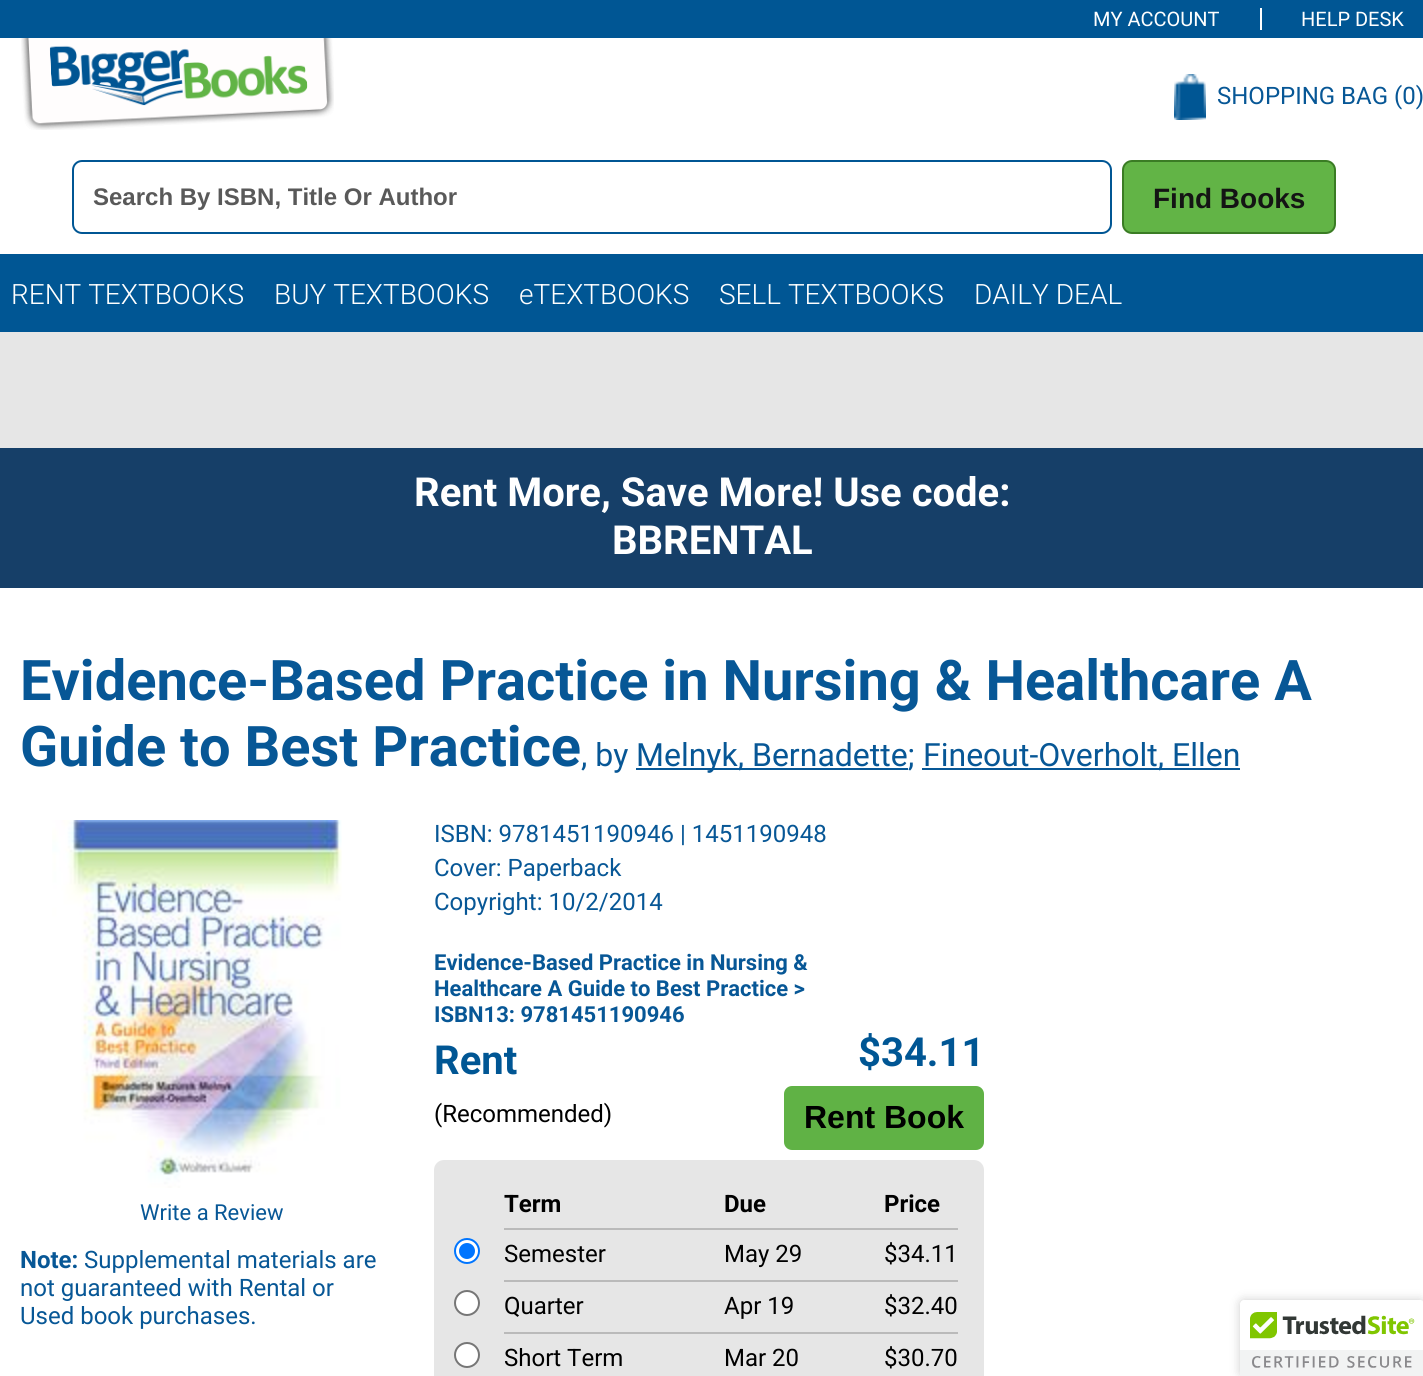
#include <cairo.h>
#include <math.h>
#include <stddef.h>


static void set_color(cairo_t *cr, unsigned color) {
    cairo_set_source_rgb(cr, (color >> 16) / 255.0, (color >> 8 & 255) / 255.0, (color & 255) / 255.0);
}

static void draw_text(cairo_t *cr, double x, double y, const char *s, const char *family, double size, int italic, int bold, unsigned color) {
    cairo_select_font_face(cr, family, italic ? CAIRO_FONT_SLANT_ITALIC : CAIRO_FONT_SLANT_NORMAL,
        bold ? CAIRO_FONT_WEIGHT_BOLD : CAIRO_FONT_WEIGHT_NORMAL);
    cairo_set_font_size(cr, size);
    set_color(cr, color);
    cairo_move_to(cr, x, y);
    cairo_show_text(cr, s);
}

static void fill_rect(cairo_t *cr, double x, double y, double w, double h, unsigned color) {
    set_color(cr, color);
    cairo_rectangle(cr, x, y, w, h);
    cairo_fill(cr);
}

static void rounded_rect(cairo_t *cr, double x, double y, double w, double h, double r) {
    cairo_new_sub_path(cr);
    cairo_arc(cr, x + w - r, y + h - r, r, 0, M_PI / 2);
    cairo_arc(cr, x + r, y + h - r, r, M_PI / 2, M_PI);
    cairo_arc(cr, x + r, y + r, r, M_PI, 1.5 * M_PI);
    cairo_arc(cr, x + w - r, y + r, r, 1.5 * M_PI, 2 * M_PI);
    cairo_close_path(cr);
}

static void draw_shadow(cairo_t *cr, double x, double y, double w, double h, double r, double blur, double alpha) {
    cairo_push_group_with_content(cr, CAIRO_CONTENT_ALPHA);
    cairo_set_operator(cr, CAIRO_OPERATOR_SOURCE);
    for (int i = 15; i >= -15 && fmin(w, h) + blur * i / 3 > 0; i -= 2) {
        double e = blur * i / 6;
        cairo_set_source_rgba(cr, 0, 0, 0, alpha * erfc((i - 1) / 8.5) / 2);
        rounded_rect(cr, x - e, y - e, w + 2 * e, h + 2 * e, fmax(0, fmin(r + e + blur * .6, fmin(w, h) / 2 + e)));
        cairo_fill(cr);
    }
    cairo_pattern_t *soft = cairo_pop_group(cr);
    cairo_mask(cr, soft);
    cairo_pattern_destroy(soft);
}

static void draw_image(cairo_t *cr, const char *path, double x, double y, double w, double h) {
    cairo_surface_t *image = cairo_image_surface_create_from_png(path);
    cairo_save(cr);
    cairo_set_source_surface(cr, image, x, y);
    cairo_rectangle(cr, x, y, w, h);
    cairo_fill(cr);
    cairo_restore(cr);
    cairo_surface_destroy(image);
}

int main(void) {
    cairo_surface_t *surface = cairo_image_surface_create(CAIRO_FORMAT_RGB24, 1423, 1376);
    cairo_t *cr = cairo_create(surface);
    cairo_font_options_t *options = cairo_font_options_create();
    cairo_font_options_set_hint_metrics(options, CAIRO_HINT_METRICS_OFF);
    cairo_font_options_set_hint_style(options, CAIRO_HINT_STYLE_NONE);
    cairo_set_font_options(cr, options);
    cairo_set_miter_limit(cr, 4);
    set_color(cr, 0xFFFFFF);
    cairo_paint(cr);
    fill_rect(cr, 0, 0, 1423, 38, 0x005694);
    draw_text(cr, 1093, 26, "MY ACCOUNT", "Roboto", 20, 0, 0, 0xFFFFFF);
    fill_rect(cr, 1260, 8, 2, 22, 0xFFFFFF);
    draw_text(cr, 1301, 26, "HELP DESK", "Roboto", 20, 0, 0, 0xFFFFFF);
    draw_image(cr, "assets/img1.png", 21, 38, 313, 92);
    draw_image(cr, "assets/img2.png", 1174, 74, 32, 46);
    draw_text(cr, 1217, 104, "SHOPPING BAG (0)", "Roboto", 24, 0, 0, 0x075796);
    rounded_rect(cr, 73, 161, 1038, 72, 9);
    set_color(cr, 0x005694);
    cairo_stroke(cr);
    draw_text(cr, 93, 205, "Search By ISBN, Title Or Author", "Liberation Sans", 24, 0, 1, 0x595959);
    set_color(cr, 0x62B446);
    rounded_rect(cr, 1123, 161, 212, 72, 9);
    cairo_fill_preserve(cr);
    set_color(cr, 0x3A7C24);
    cairo_stroke(cr);
    draw_text(cr, 1153, 208, "Find Books", "Liberation Sans", 28, 0, 1, 0x141414);
    fill_rect(cr, 0, 254, 1423, 78, 0x005694);
    draw_text(cr, 11, 304, "RENT TEXTBOOKS", "Roboto Light", 28, 0, 0, 0xFFFFFF);
    draw_text(cr, 274, 304, "BUY TEXTBOOKS", "Roboto Light", 28, 0, 0, 0xFFFFFF);
    draw_text(cr, 519, 304, "eTEXTBOOKS", "Roboto Light", 28, 0, 0, 0xFFFFFF);
    draw_text(cr, 719, 304, "SELL TEXTBOOKS", "Roboto Light", 28, 0, 0, 0xFFFFFF);
    draw_text(cr, 974, 304, "DAILY DEAL", "Roboto Light", 28, 0, 0, 0xFFFFFF);
    fill_rect(cr, 0, 332, 1423, 116, 0xE6E6E6);
    fill_rect(cr, 0, 448, 1423, 140, 0x163F68);
    draw_text(cr, 414, 506, "Rent More, Save More! Use code:", "Roboto", 40, 0, 1, 0xFFFFFF);
    draw_text(cr, 612, 554, "BBRENTAL", "Roboto", 40, 0, 1, 0xFFFFFF);
    draw_text(cr, 20, 700, "Evidence-Based Practice in Nursing & Healthcare A", "Roboto", 56, 0, 1, 0x075796);
    draw_text(cr, 20, 766, "Guide to Best Practice", "Roboto", 56, 0, 1, 0x075796);
    draw_text(cr, 581, 766, ", by", "Roboto", 32, 0, 0, 0x075796);
    fill_rect(cr, 636, 768, 272, 2, 0x075796);
    draw_text(cr, 636, 766, "Melnyk, Bernadette;", "Roboto", 32, 0, 0, 0x075796);
    fill_rect(cr, 922, 768, 318, 2, 0x075796);
    draw_text(cr, 923, 766, "Fineout-Overholt, Ellen", "Roboto", 32, 0, 0, 0x075796);
    draw_image(cr, "assets/img3.png", 52, 820, 290, 368);
    draw_text(cr, 140, 1220, "Write a Review", "Roboto", 22, 0, 0, 0x075796);
    draw_text(cr, 20, 1268, "Note:", "Roboto", 24, 0, 1, 0x075796);
    draw_text(cr, 84, 1268, "Supplemental materials are", "Roboto", 24, 0, 0, 0x075796);
    draw_text(cr, 20, 1296, "not guaranteed with Rental or", "Roboto", 24, 0, 0, 0x075796);
    draw_text(cr, 20, 1324, "Used book purchases.", "Roboto", 24, 0, 0, 0x075796);
    draw_text(cr, 434, 842, "ISBN: 9781451190946 | 1451190948", "Roboto", 24, 0, 0, 0x075796);
    draw_text(cr, 434, 876, "Cover: Paperback", "Roboto", 24, 0, 0, 0x075796);
    draw_text(cr, 434, 910, "Copyright: 10/2/2014", "Roboto", 24, 0, 0, 0x075796);
    draw_text(cr, 434, 970, "Evidence-Based Practice in Nursing &", "Roboto", 22, 0, 1, 0x075796);
    draw_text(cr, 434, 996, "Healthcare A Guide to Best Practice >", "Roboto", 22, 0, 1, 0x075796);
    draw_text(cr, 434, 1022, "ISBN13: 9781451190946", "Roboto", 22, 0, 1, 0x075796);
    draw_text(cr, 434, 1074, "Rent", "Roboto", 40, 0, 1, 0x005694);
    draw_text(cr, 434, 1122, "(Recommended)", "Roboto", 24, 0, 0, 0x000000);
    draw_text(cr, 858, 1066, "$34.11", "Roboto", 40, 0, 1, 0x005694);
    set_color(cr, 0x60B245);
    rounded_rect(cr, 784, 1086, 200, 64, 8);
    cairo_fill(cr);
    draw_text(cr, 804, 1128, "Rent Book", "Liberation Sans", 32, 0, 1, 0x000000);
    set_color(cr, 0xE6E6E6);
    rounded_rect(cr, 434, 1160, 550, 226, 10);
    cairo_fill(cr);
    draw_text(cr, 504, 1212, "Term", "Roboto", 24, 0, 1, 0x000000);
    draw_text(cr, 724, 1212, "Due", "Roboto", 24, 0, 1, 0x000000);
    draw_text(cr, 884, 1212, "Price", "Roboto", 24, 0, 1, 0x000000);
    set_color(cr, 0xFFFFFF);
    cairo_new_path(cr);
    cairo_arc(cr, 467, 1251, 12, 0, 2 * M_PI);
    cairo_fill_preserve(cr);
    set_color(cr, 0x0075FF);
    cairo_stroke(cr);
    cairo_arc(cr, 467, 1251, 8, 0, 2 * M_PI);
    cairo_fill(cr);
    fill_rect(cr, 504, 1228, 454, 2, 0xBABABA);
    draw_text(cr, 504, 1262, "Semester", "Roboto", 24, 0, 0, 0x000000);
    draw_text(cr, 724, 1262, "May 29", "Roboto", 24, 0, 0, 0x000000);
    draw_text(cr, 884, 1262, "$34.11", "Roboto", 24, 0, 0, 0x000000);
    set_color(cr, 0xFFFFFF);
    cairo_new_path(cr);
    cairo_arc(cr, 467, 1303, 12, 0, 2 * M_PI);
    cairo_fill_preserve(cr);
    set_color(cr, 0x767676);
    cairo_stroke(cr);
    fill_rect(cr, 504, 1280, 454, 2, 0xBABABA);
    draw_text(cr, 504, 1314, "Quarter", "Roboto", 24, 0, 0, 0x000000);
    draw_text(cr, 724, 1314, "Apr 19", "Roboto", 24, 0, 0, 0x000000);
    draw_text(cr, 884, 1314, "$32.40", "Roboto", 24, 0, 0, 0x000000);
    set_color(cr, 0xFFFFFF);
    cairo_new_path(cr);
    cairo_arc(cr, 467, 1355, 12, 0, 2 * M_PI);
    cairo_fill_preserve(cr);
    set_color(cr, 0x767676);
    cairo_stroke(cr);
    fill_rect(cr, 504, 1332, 454, 2, 0xBABABA);
    draw_text(cr, 504, 1366, "Short Term", "Roboto", 24, 0, 0, 0x000000);
    draw_text(cr, 724, 1366, "Mar 20", "Roboto", 24, 0, 0, 0x000000);
    draw_text(cr, 884, 1366, "$30.70", "Roboto", 24, 0, 0, 0x000000);
    set_color(cr, 0x000000);
    draw_shadow(cr, 1240, 1300, 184, 76, 4, 5, 0.2);
    set_color(cr, 0xFFFFFF);
    cairo_new_path(cr);
    cairo_move_to(cr, 1244, 1300);
    cairo_line_to(cr, 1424, 1300);
    cairo_line_to(cr, 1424, 1376);
    cairo_line_to(cr, 1240, 1376);
    cairo_line_to(cr, 1240, 1304);
    cairo_curve_to(cr, 1240, 1302, 1242, 1300, 1244, 1300);
    cairo_close_path(cr);
    cairo_fill(cr);
    draw_image(cr, "assets/img4.png", 1240, 1300, 183, 76);
    cairo_surface_write_to_png(surface, "output.png");
    cairo_font_options_destroy(options);
    cairo_destroy(cr);
    cairo_surface_destroy(surface);
    return 0;
}
